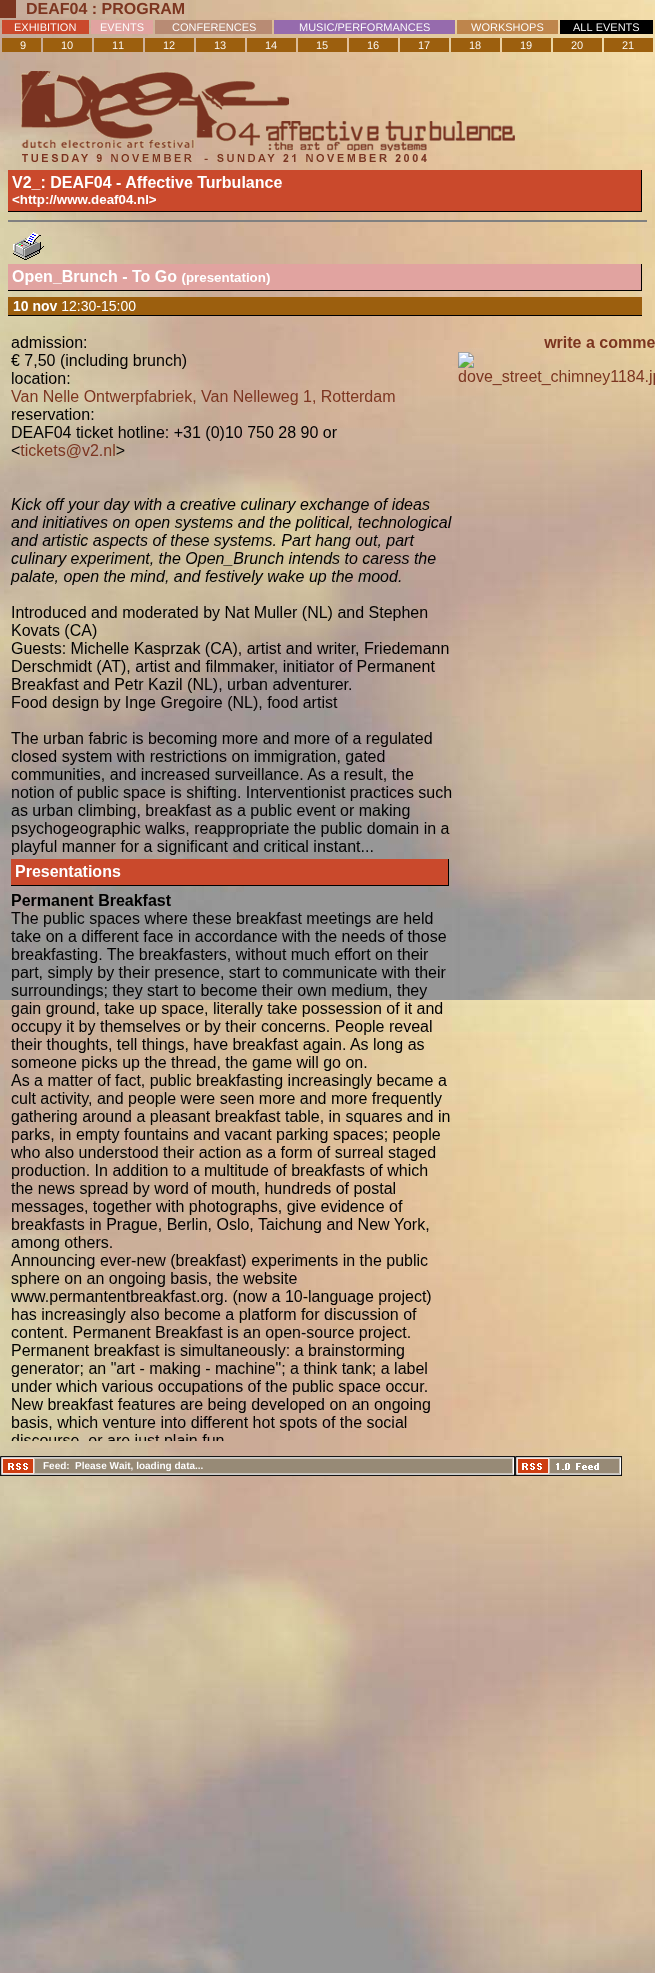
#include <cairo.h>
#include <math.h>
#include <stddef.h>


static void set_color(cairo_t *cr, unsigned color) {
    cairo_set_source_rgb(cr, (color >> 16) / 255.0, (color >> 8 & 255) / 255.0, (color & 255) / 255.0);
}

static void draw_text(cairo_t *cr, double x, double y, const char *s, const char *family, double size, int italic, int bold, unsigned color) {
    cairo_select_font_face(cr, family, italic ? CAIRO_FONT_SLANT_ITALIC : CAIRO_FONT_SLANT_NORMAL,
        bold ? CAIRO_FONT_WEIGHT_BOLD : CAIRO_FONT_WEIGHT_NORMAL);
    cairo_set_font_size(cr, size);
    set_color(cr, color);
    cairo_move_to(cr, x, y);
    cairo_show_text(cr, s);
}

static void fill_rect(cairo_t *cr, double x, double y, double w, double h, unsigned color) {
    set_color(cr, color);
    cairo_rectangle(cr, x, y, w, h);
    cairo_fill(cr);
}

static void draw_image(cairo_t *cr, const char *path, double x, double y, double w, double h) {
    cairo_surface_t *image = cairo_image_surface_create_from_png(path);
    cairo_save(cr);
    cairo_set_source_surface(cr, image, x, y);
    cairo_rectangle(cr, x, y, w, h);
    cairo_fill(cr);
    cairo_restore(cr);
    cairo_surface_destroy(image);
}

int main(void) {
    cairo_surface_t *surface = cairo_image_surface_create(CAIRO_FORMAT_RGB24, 655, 1973);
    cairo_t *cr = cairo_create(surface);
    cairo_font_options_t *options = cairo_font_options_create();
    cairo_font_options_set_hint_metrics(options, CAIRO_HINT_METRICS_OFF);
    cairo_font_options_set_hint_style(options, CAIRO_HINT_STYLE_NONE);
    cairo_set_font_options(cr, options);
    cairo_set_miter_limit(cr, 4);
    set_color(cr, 0xFFFFFF);
    cairo_paint(cr);
    draw_image(cr, "assets/img1.png", 0, 0, 655, 1973);
    fill_rect(cr, 0, 0, 16, 18, 0x7C3520);
    draw_text(cr, 26, 14, "DEAF04 : PROGRAM", "Liberation Sans", 16, 0, 1, 0x7C3520);
    fill_rect(cr, 2, 20, 87, 14, 0xCA492C);
    draw_text(cr, 14, 31, "EXHIBITION", "Liberation Sans", 11, 0, 0, 0xFFFFFF);
    fill_rect(cr, 91, 20, 62, 14, 0xE1A3A0);
    draw_text(cr, 100, 31, "EVENTS", "Liberation Sans", 11, 0, 0, 0xFFFFFF);
    fill_rect(cr, 155, 20, 117, 14, 0xB88B74);
    draw_text(cr, 172, 31, "CONFERENCES", "Liberation Sans", 11, 0, 0, 0xFFFFFF);
    fill_rect(cr, 274, 20, 181, 14, 0x966BAD);
    draw_text(cr, 299, 31, "MUSIC/PERFORMANCES", "Liberation Sans", 11, 0, 0, 0xFFFFFF);
    fill_rect(cr, 457, 20, 101, 14, 0xBE854C);
    draw_text(cr, 471, 31, "WORKSHOPS", "Liberation Sans", 11, 0, 0, 0xFFFFFF);
    fill_rect(cr, 560, 20, 93, 14, 0x000000);
    draw_text(cr, 573, 31, "ALL EVENTS", "Liberation Sans", 11, 0, 0, 0xFFFFFF);
    fill_rect(cr, 2, 38, 39, 14, 0x9C5F0E);
    draw_text(cr, 20, 49, "9", "Liberation Sans", 11, 0, 0, 0xFFFFFF);
    fill_rect(cr, 43, 38, 49, 14, 0x9C5F0E);
    draw_text(cr, 61, 49, "10", "Liberation Sans", 11, 0, 0, 0xFFFFFF);
    fill_rect(cr, 94, 38, 49, 14, 0x9C5F0E);
    draw_text(cr, 112, 49, "11", "Liberation Sans", 11, 0, 0, 0xFFFFFF);
    fill_rect(cr, 145, 38, 49, 14, 0x9C5F0E);
    draw_text(cr, 163, 49, "12", "Liberation Sans", 11, 0, 0, 0xFFFFFF);
    fill_rect(cr, 196, 38, 49, 14, 0x9C5F0E);
    draw_text(cr, 214, 49, "13", "Liberation Sans", 11, 0, 0, 0xFFFFFF);
    fill_rect(cr, 247, 38, 49, 14, 0x9C5F0E);
    draw_text(cr, 265, 49, "14", "Liberation Sans", 11, 0, 0, 0xFFFFFF);
    fill_rect(cr, 298, 38, 49, 14, 0x9C5F0E);
    draw_text(cr, 316, 49, "15", "Liberation Sans", 11, 0, 0, 0xFFFFFF);
    fill_rect(cr, 349, 38, 49, 14, 0x9C5F0E);
    draw_text(cr, 367, 49, "16", "Liberation Sans", 11, 0, 0, 0xFFFFFF);
    fill_rect(cr, 400, 38, 49, 14, 0x9C5F0E);
    draw_text(cr, 418, 49, "17", "Liberation Sans", 11, 0, 0, 0xFFFFFF);
    fill_rect(cr, 451, 38, 49, 14, 0x9C5F0E);
    draw_text(cr, 469, 49, "18", "Liberation Sans", 11, 0, 0, 0xFFFFFF);
    fill_rect(cr, 502, 38, 49, 14, 0x9C5F0E);
    draw_text(cr, 520, 49, "19", "Liberation Sans", 11, 0, 0, 0xFFFFFF);
    fill_rect(cr, 553, 38, 49, 14, 0x9C5F0E);
    draw_text(cr, 571, 49, "20", "Liberation Sans", 11, 0, 0, 0xFFFFFF);
    fill_rect(cr, 604, 38, 49, 14, 0x9C5F0E);
    draw_text(cr, 622, 49, "21", "Liberation Sans", 11, 0, 0, 0xFFFFFF);
    draw_image(cr, "assets/img2.png", 8, 71, 647, 1370);
    draw_image(cr, "assets/img3.png", 35, 1456, 480, 20);
    draw_image(cr, "assets/img4.png", 0, 1456, 35, 20);
    draw_text(cr, 43, 1469, "Feed:", "Liberation Sans", 10, 0, 1, 0xFFFFFF);
    draw_text(cr, 75, 1469, "Please Wait, loading data...", "Liberation Sans", 10, 0, 1, 0xFFFFFF);
    draw_image(cr, "assets/img5.png", 512, 1457, 3, 19);
    draw_image(cr, "assets/img6.png", 515, 1456, 107, 20);
    cairo_surface_write_to_png(surface, "output.png");
    cairo_font_options_destroy(options);
    cairo_destroy(cr);
    cairo_surface_destroy(surface);
    return 0;
}
